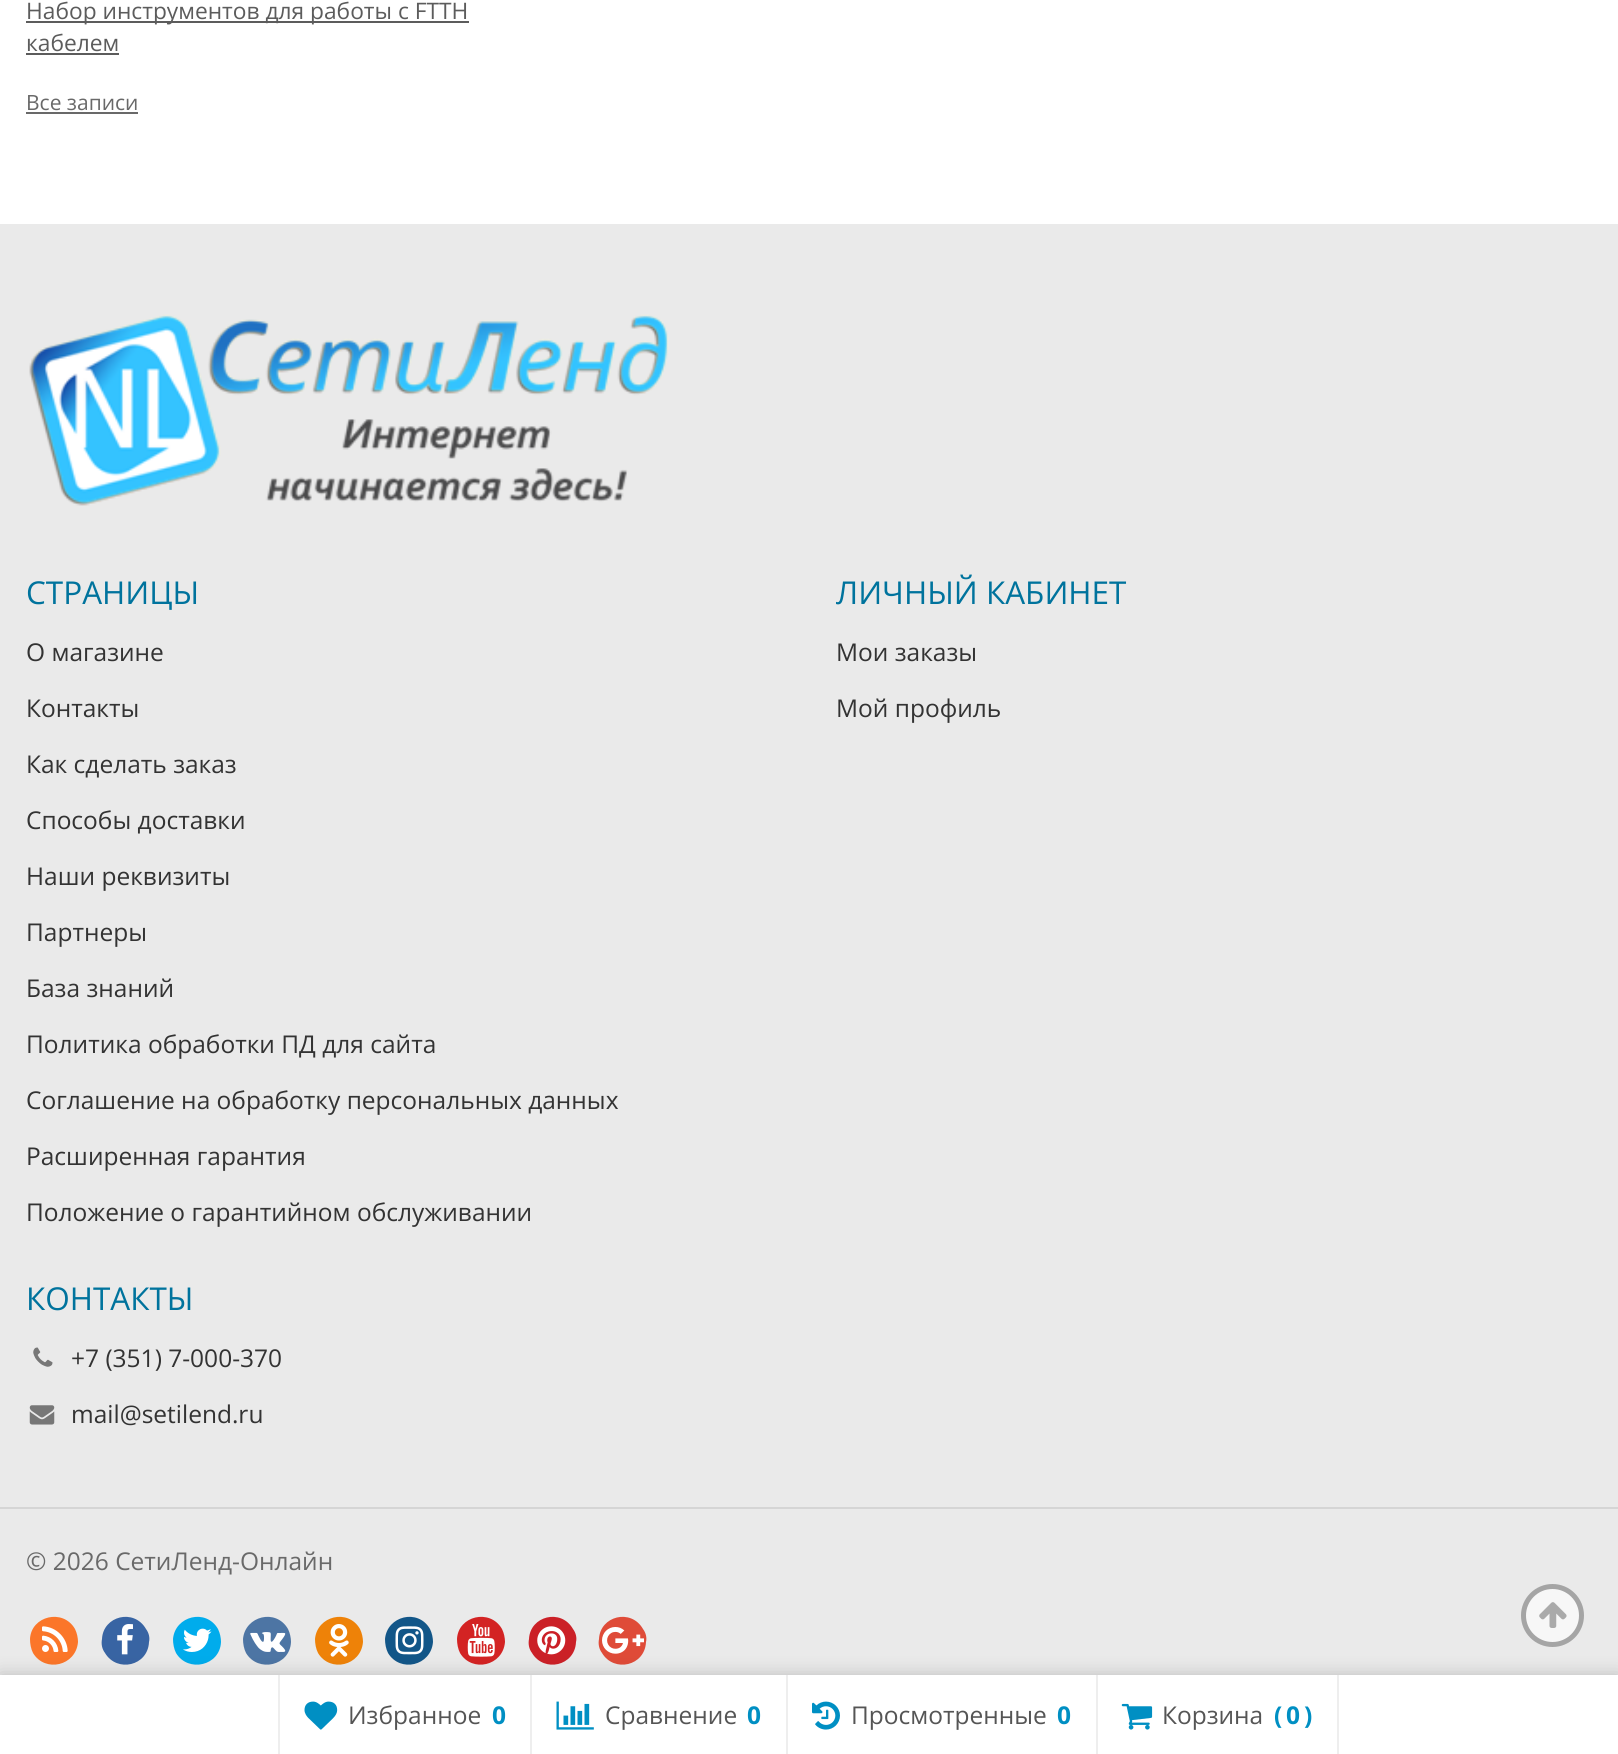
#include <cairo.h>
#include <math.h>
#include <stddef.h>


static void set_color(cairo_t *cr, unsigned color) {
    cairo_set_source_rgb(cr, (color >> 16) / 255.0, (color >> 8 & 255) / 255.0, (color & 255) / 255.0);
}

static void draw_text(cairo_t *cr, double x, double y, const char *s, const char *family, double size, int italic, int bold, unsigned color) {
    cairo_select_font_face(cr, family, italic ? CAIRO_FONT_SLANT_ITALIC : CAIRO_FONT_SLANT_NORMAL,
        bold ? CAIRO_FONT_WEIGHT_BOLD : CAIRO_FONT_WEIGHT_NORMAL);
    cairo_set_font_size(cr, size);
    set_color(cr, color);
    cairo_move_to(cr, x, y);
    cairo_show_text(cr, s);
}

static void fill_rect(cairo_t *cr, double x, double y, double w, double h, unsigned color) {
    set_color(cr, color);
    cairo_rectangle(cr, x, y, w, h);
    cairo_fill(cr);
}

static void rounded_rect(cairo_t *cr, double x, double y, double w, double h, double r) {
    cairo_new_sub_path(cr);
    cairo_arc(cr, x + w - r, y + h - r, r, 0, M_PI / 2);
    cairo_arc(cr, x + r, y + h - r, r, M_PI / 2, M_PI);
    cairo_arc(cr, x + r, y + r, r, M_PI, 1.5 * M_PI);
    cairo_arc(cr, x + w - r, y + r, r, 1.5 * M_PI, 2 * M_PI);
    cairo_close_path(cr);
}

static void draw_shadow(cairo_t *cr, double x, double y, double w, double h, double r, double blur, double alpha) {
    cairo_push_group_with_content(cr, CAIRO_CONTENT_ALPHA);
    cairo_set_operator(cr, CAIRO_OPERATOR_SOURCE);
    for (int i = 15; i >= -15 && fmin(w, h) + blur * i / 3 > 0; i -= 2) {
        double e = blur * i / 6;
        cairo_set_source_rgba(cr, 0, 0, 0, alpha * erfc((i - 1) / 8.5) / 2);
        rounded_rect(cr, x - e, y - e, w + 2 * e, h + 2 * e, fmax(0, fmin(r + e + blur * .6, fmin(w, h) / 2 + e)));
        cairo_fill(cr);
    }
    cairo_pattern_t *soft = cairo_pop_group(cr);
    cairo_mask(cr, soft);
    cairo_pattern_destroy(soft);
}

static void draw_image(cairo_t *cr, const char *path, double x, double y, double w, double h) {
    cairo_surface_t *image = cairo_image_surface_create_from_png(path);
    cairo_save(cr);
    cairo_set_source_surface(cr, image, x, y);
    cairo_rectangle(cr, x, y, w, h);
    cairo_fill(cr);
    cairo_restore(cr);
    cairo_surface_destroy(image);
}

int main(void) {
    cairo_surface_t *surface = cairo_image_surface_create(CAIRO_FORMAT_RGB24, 1618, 1754);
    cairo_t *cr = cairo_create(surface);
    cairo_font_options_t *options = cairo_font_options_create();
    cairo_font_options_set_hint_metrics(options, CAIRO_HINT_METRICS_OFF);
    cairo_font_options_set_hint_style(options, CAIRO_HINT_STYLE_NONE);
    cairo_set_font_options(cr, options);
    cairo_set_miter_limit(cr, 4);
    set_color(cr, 0xFFFFFF);
    cairo_paint(cr);
    fill_rect(cr, 26, 21, 443, 2, 0x5C5C5C);
    draw_text(cr, 26, 19, "Набор инструментов для работы с FTTH", "Open Sans", 22.75, 0, 0, 0x5C5C5C);
    draw_text(cr, 26, 51, "кабелем", "Open Sans", 22.75, 0, 0, 0x5C5C5C);
    fill_rect(cr, 26, 53, 93, 2, 0x5C5C5C);
    draw_text(cr, 26, 110, "Все записи", "Open Sans", 21, 0, 0, 0x696969);
    fill_rect(cr, 26, 112, 112, 2, 0x696969);
    fill_rect(cr, 0, 224, 1618, 1451, 0xEAEAEA);
    draw_image(cr, "assets/img1.png", 29, 314, 640, 192);
    draw_text(cr, 26, 604, "СТРАНИЦЫ", "Open Sans", 31.5, 0, 0, 0x00739D);
    draw_text(cr, 26, 661, "О магазине", "Open Sans", 24.5, 0, 0, 0x333333);
    draw_text(cr, 26, 717, "Контакты", "Open Sans", 24.5, 0, 0, 0x333333);
    draw_text(cr, 26, 773, "Как сделать заказ", "Open Sans", 24.5, 0, 0, 0x333333);
    draw_text(cr, 26, 829, "Способы доставки", "Open Sans", 24.5, 0, 0, 0x333333);
    draw_text(cr, 26, 885, "Наши реквизиты", "Open Sans", 24.5, 0, 0, 0x333333);
    draw_text(cr, 26, 941, "Партнеры", "Open Sans", 24.5, 0, 0, 0x333333);
    draw_text(cr, 26, 997, "База знаний", "Open Sans", 24.5, 0, 0, 0x333333);
    draw_text(cr, 26, 1053, "Политика обработки ПД для сайта", "Open Sans", 24.5, 0, 0, 0x333333);
    draw_text(cr, 26, 1109, "Соглашение на обработку персональных данных", "Open Sans", 24.5, 0, 0, 0x333333);
    draw_text(cr, 26, 1165, "Расширенная гарантия", "Open Sans", 24.5, 0, 0, 0x333333);
    draw_text(cr, 26, 1221, "Положение о гарантийном обслуживании", "Open Sans", 24.5, 0, 0, 0x333333);
    draw_text(cr, 836, 604, "ЛИЧНЫЙ КАБИНЕТ", "Open Sans", 31.5, 0, 0, 0x00739D);
    draw_text(cr, 836, 661, "Мои заказы", "Open Sans", 24.5, 0, 0, 0x333333);
    draw_text(cr, 836, 717, "Мой профиль", "Open Sans", 24.5, 0, 0, 0x333333);
    draw_text(cr, 26, 1310, "КОНТАКТЫ", "Open Sans", 31.5, 0, 0, 0x00739D);
    draw_image(cr, "assets/img2.png", 33, 1347, 20, 20);
    draw_text(cr, 71, 1367, "+7 (351) 7-000-370", "Open Sans", 24.5, 0, 0, 0x333333);
    draw_image(cr, "assets/img3.png", 29, 1405, 26, 20);
    draw_text(cr, 71, 1423, "mail@setilend.ru", "Open Sans", 24.5, 0, 0, 0x333333);
    fill_rect(cr, 0, 1507, 1618, 2, 0xD5D5D5);
    draw_text(cr, 26, 1570, "© 2026 СетиЛенд-Онлайн", "Open Sans", 24.5, 0, 0, 0x696969);
    set_color(cr, 0xFB7629);
    cairo_new_path(cr);
    cairo_move_to(cr, 75, 1629);
    cairo_curve_to(cr, 77, 1633, 78, 1638, 78, 1642);
    cairo_curve_to(cr, 76, 1666, 45, 1673, 33, 1653);
    cairo_curve_to(cr, 31, 1649, 30, 1644, 30, 1639);
    cairo_curve_to(cr, 31, 1616, 63, 1608, 75, 1629);
    cairo_close_path(cr);
    cairo_fill(cr);
    draw_image(cr, "assets/img4.png", 42, 1626, 26, 26);
    set_color(cr, 0x3864A3);
    cairo_new_path(cr);
    cairo_move_to(cr, 146, 1629);
    cairo_curve_to(cr, 149, 1633, 150, 1638, 149, 1642);
    cairo_curve_to(cr, 148, 1666, 117, 1673, 105, 1653);
    cairo_curve_to(cr, 102, 1649, 101, 1644, 102, 1639);
    cairo_curve_to(cr, 103, 1616, 134, 1608, 146, 1629);
    cairo_close_path(cr);
    cairo_fill(cr);
    draw_image(cr, "assets/img5.png", 117, 1624, 16, 31);
    set_color(cr, 0x00ACEC);
    cairo_new_path(cr);
    cairo_move_to(cr, 218, 1629);
    cairo_curve_to(cr, 220, 1633, 221, 1638, 221, 1642);
    cairo_curve_to(cr, 220, 1666, 188, 1673, 176, 1653);
    cairo_curve_to(cr, 174, 1649, 173, 1644, 173, 1639);
    cairo_curve_to(cr, 175, 1616, 206, 1608, 218, 1629);
    cairo_close_path(cr);
    cairo_fill(cr);
    draw_image(cr, "assets/img6.png", 183, 1628, 29, 24);
    set_color(cr, 0x4D75A4);
    cairo_new_path(cr);
    cairo_move_to(cr, 288, 1629);
    cairo_curve_to(cr, 290, 1633, 291, 1638, 291, 1642);
    cairo_curve_to(cr, 290, 1666, 258, 1673, 246, 1653);
    cairo_curve_to(cr, 244, 1649, 243, 1644, 243, 1639);
    cairo_curve_to(cr, 245, 1616, 276, 1608, 288, 1629);
    cairo_close_path(cr);
    cairo_fill(cr);
    draw_image(cr, "assets/img7.png", 250, 1632, 36, 20);
    set_color(cr, 0xEE8208);
    cairo_new_path(cr);
    cairo_move_to(cr, 360, 1629);
    cairo_curve_to(cr, 362, 1633, 363, 1638, 363, 1642);
    cairo_curve_to(cr, 361, 1666, 330, 1673, 318, 1653);
    cairo_curve_to(cr, 316, 1649, 315, 1644, 315, 1639);
    cairo_curve_to(cr, 317, 1616, 348, 1608, 360, 1629);
    cairo_close_path(cr);
    cairo_fill(cr);
    draw_image(cr, "assets/img8.png", 329, 1624, 20, 33);
    set_color(cr, 0x125688);
    cairo_new_path(cr);
    cairo_move_to(cr, 430, 1629);
    cairo_curve_to(cr, 432, 1633, 433, 1638, 433, 1642);
    cairo_curve_to(cr, 431, 1666, 400, 1673, 388, 1653);
    cairo_curve_to(cr, 386, 1649, 385, 1644, 385, 1639);
    cairo_curve_to(cr, 387, 1616, 418, 1608, 430, 1629);
    cairo_close_path(cr);
    cairo_fill(cr);
    draw_image(cr, "assets/img9.png", 395, 1626, 29, 29);
    set_color(cr, 0xD32323);
    cairo_new_path(cr);
    cairo_move_to(cr, 502, 1629);
    cairo_curve_to(cr, 504, 1633, 505, 1638, 505, 1642);
    cairo_curve_to(cr, 503, 1666, 472, 1673, 460, 1653);
    cairo_curve_to(cr, 458, 1649, 457, 1644, 457, 1639);
    cairo_curve_to(cr, 458, 1616, 490, 1608, 502, 1629);
    cairo_close_path(cr);
    cairo_fill(cr);
    draw_image(cr, "assets/img10.png", 467, 1624, 28, 33);
    set_color(cr, 0xCB2027);
    cairo_new_path(cr);
    cairo_move_to(cr, 573, 1629);
    cairo_curve_to(cr, 576, 1633, 577, 1638, 576, 1642);
    cairo_curve_to(cr, 575, 1666, 544, 1673, 532, 1653);
    cairo_curve_to(cr, 529, 1649, 528, 1644, 529, 1639);
    cairo_curve_to(cr, 530, 1616, 561, 1608, 573, 1629);
    cairo_close_path(cr);
    cairo_fill(cr);
    draw_image(cr, "assets/img11.png", 537, 1626, 29, 29);
    set_color(cr, 0xDF4B38);
    cairo_new_path(cr);
    cairo_move_to(cr, 643, 1629);
    cairo_curve_to(cr, 646, 1633, 647, 1638, 646, 1642);
    cairo_curve_to(cr, 645, 1666, 614, 1673, 602, 1653);
    cairo_curve_to(cr, 599, 1649, 598, 1644, 599, 1639);
    cairo_curve_to(cr, 600, 1616, 631, 1608, 643, 1629);
    cairo_close_path(cr);
    cairo_fill(cr);
    draw_image(cr, "assets/img12.png", 602, 1627, 42, 27);
    set_color(cr, 0xF7F7F7);
    cairo_arc(cr, 1552.5, 1615.5, 29, 0, 2 * M_PI);
    cairo_fill_preserve(cr);
    set_color(cr, 0xA5A5A5);
    cairo_set_line_width(cr, 5);
    cairo_stroke(cr);
    draw_image(cr, "assets/img13.png", 1539, 1602, 28, 26);
    set_color(cr, 0x000000);
    draw_shadow(cr, 0, 1675, 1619, 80, 0, 9, 0.2);
    fill_rect(cr, 0, 1675, 1618, 79, 0xFFFFFF);
    fill_rect(cr, 278, 1675, 2, 79, 0xEEEEEE);
    draw_image(cr, "assets/img14.png", 304, 1701, 34, 29);
    draw_text(cr, 348, 1724, "Избранное", "Open Sans", 24.5, 0, 0, 0x555555);
    draw_text(cr, 492, 1724, "0", "Open Sans", 24.5, 0, 1, 0x008FC3);
    fill_rect(cr, 530, 1675, 2, 79, 0xEEEEEE);
    draw_image(cr, "assets/img15.png", 556, 1701, 38, 29);
    draw_text(cr, 605, 1724, "Сравнение", "Open Sans", 24.5, 0, 0, 0x555555);
    draw_text(cr, 747, 1724, "0", "Open Sans", 24.5, 0, 1, 0x008FC3);
    fill_rect(cr, 786, 1675, 2, 79, 0xEEEEEE);
    draw_image(cr, "assets/img16.png", 812, 1701, 28, 29);
    draw_text(cr, 851, 1724, "Просмотренные", "Open Sans", 24.5, 0, 0, 0x555555);
    draw_text(cr, 1057, 1724, "0", "Open Sans", 24.5, 0, 1, 0x008FC3);
    fill_rect(cr, 1337, 1675, 2, 79, 0xEEEEEE);
    fill_rect(cr, 1096, 1675, 2, 79, 0xEEEEEE);
    draw_image(cr, "assets/img17.png", 1121, 1703, 32, 27);
    draw_text(cr, 1162, 1724, "Корзина", "Open Sans", 24.5, 0, 0, 0x555555);
    draw_text(cr, 1274, 1724, "(", "Open Sans", 24.5, 0, 1, 0x008FC3);
    draw_text(cr, 1286, 1724, "0", "Open Sans", 24.5, 0, 1, 0x008FC3);
    draw_text(cr, 1304, 1724, ")", "Open Sans", 24.5, 0, 1, 0x008FC3);
    cairo_surface_write_to_png(surface, "output.png");
    cairo_font_options_destroy(options);
    cairo_destroy(cr);
    cairo_surface_destroy(surface);
    return 0;
}
